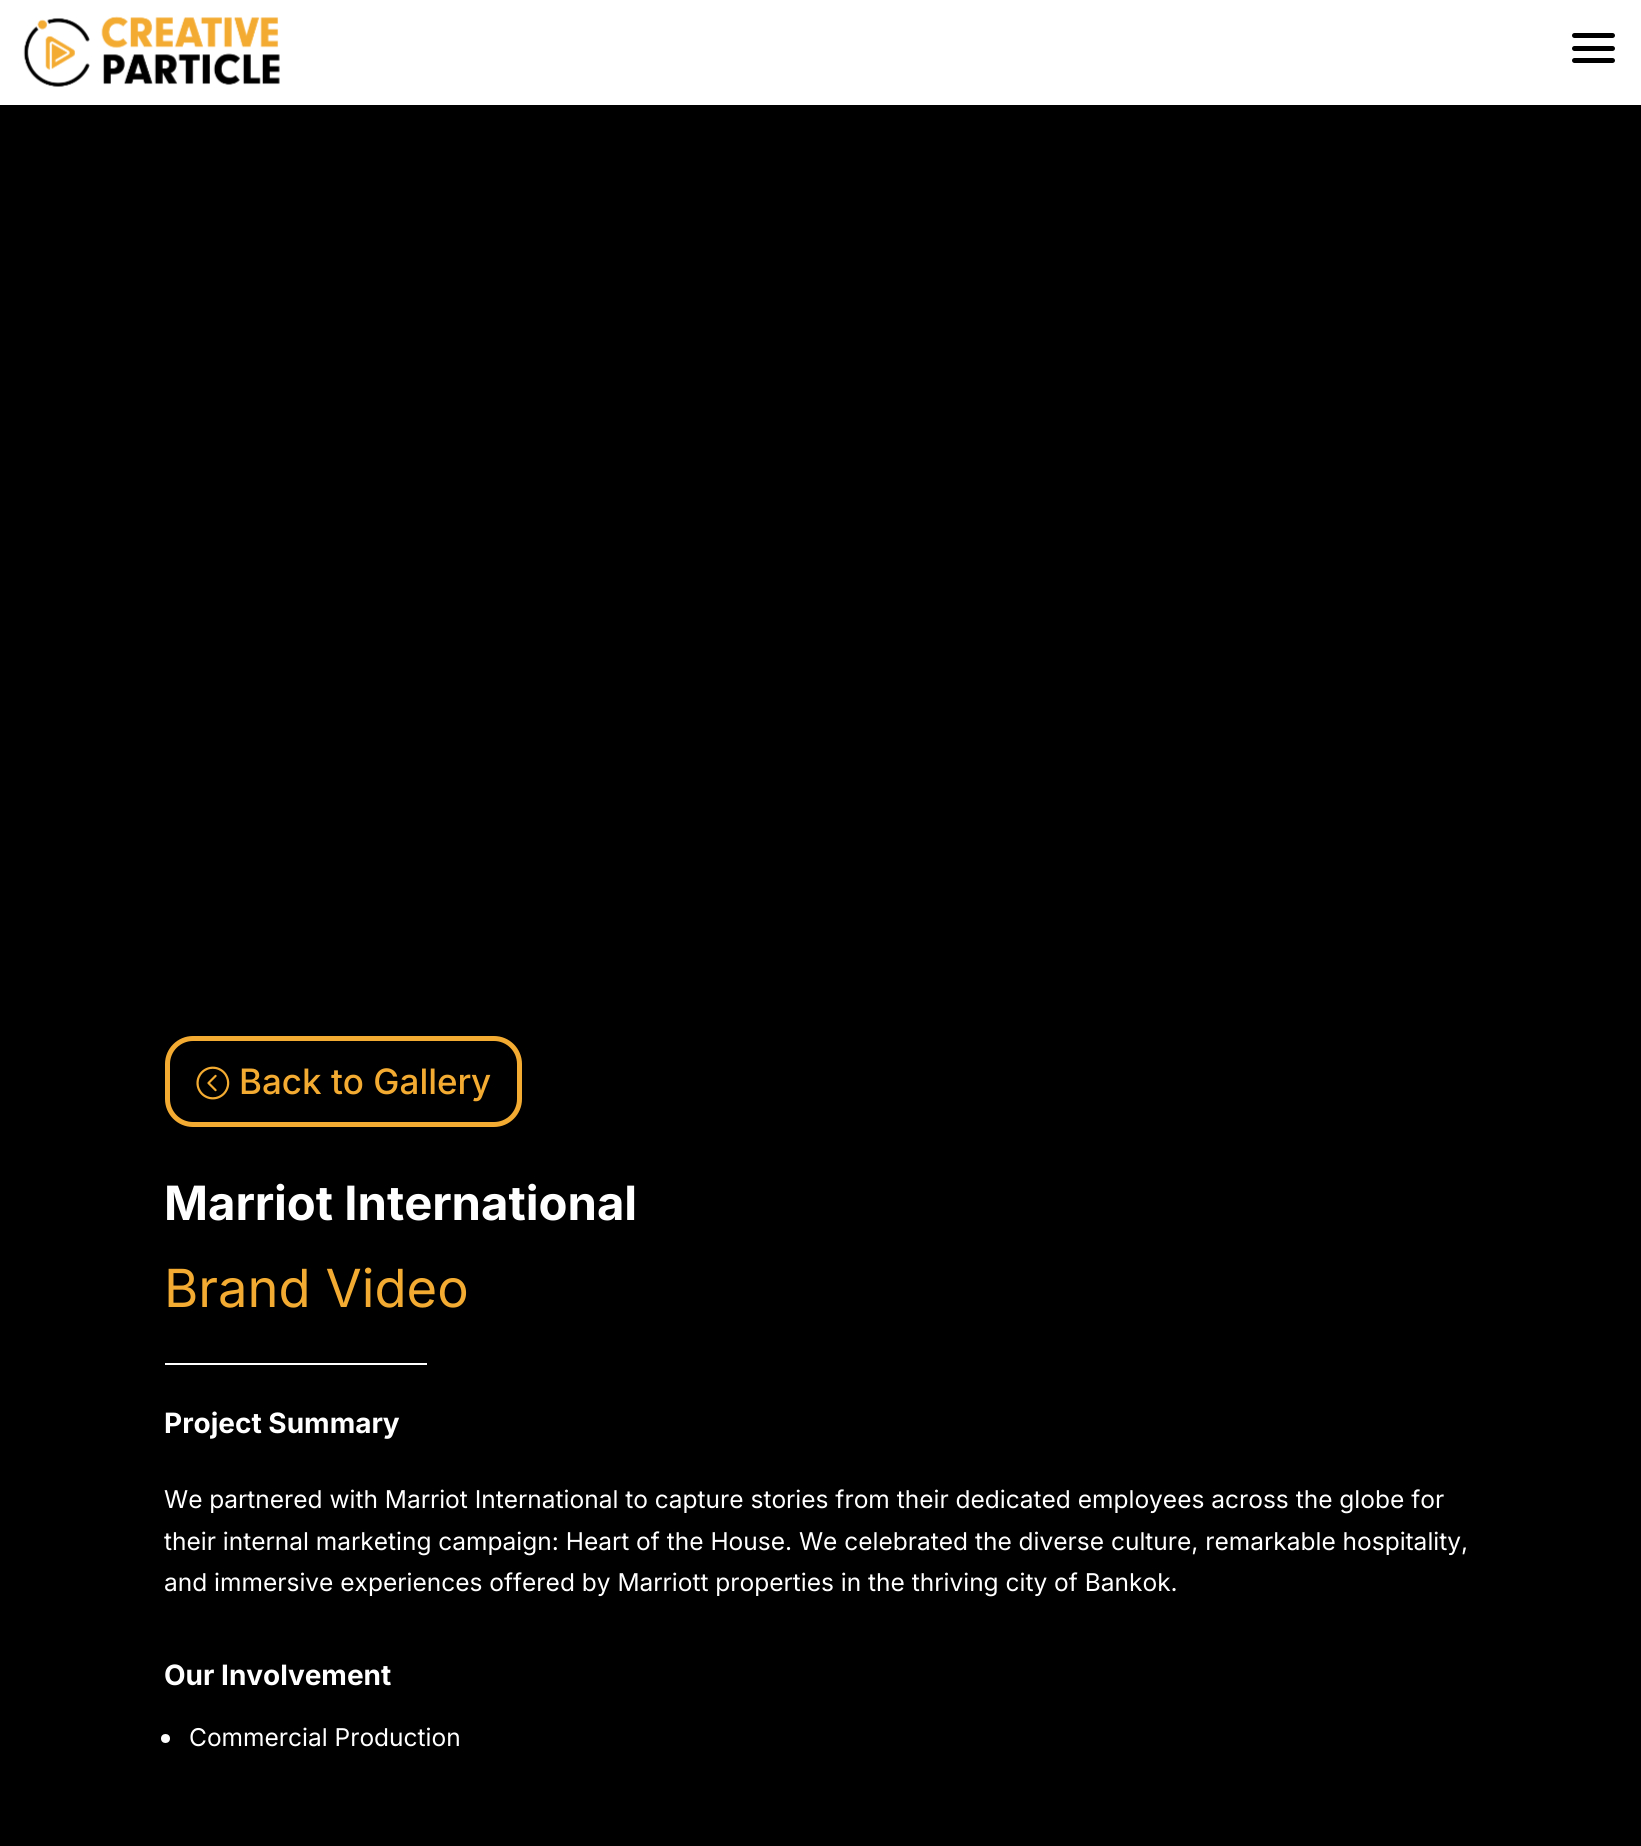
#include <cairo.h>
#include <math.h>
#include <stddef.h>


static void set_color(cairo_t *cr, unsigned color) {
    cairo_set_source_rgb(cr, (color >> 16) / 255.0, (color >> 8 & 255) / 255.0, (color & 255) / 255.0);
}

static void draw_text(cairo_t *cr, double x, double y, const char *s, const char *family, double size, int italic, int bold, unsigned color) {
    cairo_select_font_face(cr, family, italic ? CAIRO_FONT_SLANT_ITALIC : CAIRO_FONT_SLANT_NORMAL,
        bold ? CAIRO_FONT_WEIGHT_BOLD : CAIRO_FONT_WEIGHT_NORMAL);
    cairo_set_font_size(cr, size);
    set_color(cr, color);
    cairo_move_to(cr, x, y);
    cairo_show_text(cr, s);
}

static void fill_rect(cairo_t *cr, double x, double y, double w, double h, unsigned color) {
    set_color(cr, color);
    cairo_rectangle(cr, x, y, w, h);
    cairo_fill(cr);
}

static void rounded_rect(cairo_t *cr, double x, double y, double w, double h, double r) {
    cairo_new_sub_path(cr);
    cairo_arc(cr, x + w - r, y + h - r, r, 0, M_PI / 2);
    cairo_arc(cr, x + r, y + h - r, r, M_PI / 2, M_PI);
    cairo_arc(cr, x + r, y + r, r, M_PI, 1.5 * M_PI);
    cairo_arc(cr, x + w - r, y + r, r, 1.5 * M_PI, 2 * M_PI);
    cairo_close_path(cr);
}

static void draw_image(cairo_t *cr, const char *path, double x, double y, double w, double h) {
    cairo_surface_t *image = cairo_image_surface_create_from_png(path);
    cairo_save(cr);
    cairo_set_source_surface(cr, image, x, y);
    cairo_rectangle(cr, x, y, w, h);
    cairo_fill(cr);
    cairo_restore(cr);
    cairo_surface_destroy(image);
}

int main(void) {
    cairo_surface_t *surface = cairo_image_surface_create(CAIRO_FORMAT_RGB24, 1641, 1846);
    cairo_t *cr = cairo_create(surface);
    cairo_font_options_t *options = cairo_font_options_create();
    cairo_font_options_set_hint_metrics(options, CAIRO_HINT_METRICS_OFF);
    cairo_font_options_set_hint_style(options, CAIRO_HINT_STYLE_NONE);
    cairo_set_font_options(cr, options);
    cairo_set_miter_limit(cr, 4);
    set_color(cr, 0x000000);
    cairo_paint(cr);
    fill_rect(cr, 0, 0, 1641, 105, 0xFFFFFF);
    draw_image(cr, "assets/img1.png", 23, 16, 257, 71);
    set_color(cr, 0x000000);
    rounded_rect(cr, 1572, 46, 43, 5, 2.5);
    cairo_fill(cr);
    rounded_rect(cr, 1572, 33, 43, 5, 2.5);
    cairo_fill(cr);
    rounded_rect(cr, 1572, 58, 43, 5, 2.5);
    cairo_fill(cr);
    rounded_rect(cr, 167.5, 1038.5, 352, 86, 25.5);
    set_color(cr, 0xF4AB31);
    cairo_set_line_width(cr, 5);
    cairo_stroke(cr);
    draw_image(cr, "assets/img2.png", 196, 1066, 34, 34);
    draw_text(cr, 239, 1094, "Back to Gallery", "Inter Medium", 35, 0, 0, 0xF4AB31);
    draw_text(cr, 164, 1220, "Marriot International", "Inter", 47.25, 0, 1, 0xFFFFFF);
    draw_text(cr, 164, 1307, "Brand Video", "Inter", 52.5, 0, 0, 0xF4AB31);
    fill_rect(cr, 165, 1363, 262, 2, 0xFFFFFF);
    draw_text(cr, 164, 1433, "Project Summary", "Inter", 28, 0, 1, 0xFFFFFF);
    draw_text(cr, 164, 1508, "We partnered with Marriot International to capture stories from their dedicated employees across the globe for", "Inter", 24.5, 0, 0, 0xFFFFFF);
    draw_text(cr, 164, 1550, "their internal marketing campaign: Heart of the House. We celebrated the diverse culture, remarkable hospitality,", "Inter", 24.5, 0, 0, 0xFFFFFF);
    draw_text(cr, 164, 1591, "and immersive experiences offered by Marriott properties in the thriving city of Bankok.", "Inter", 24.5, 0, 0, 0xFFFFFF);
    draw_text(cr, 164, 1685, "Our Involvement", "Inter", 28, 0, 1, 0xFFFFFF);
    cairo_new_path(cr);
    cairo_arc(cr, 165.5, 1738.5, 4.5, 0, 2 * M_PI);
    cairo_fill(cr);
    draw_text(cr, 189, 1746, "Commercial Production", "Inter", 24.5, 0, 0, 0xFFFFFF);
    cairo_surface_write_to_png(surface, "output.png");
    cairo_font_options_destroy(options);
    cairo_destroy(cr);
    cairo_surface_destroy(surface);
    return 0;
}
